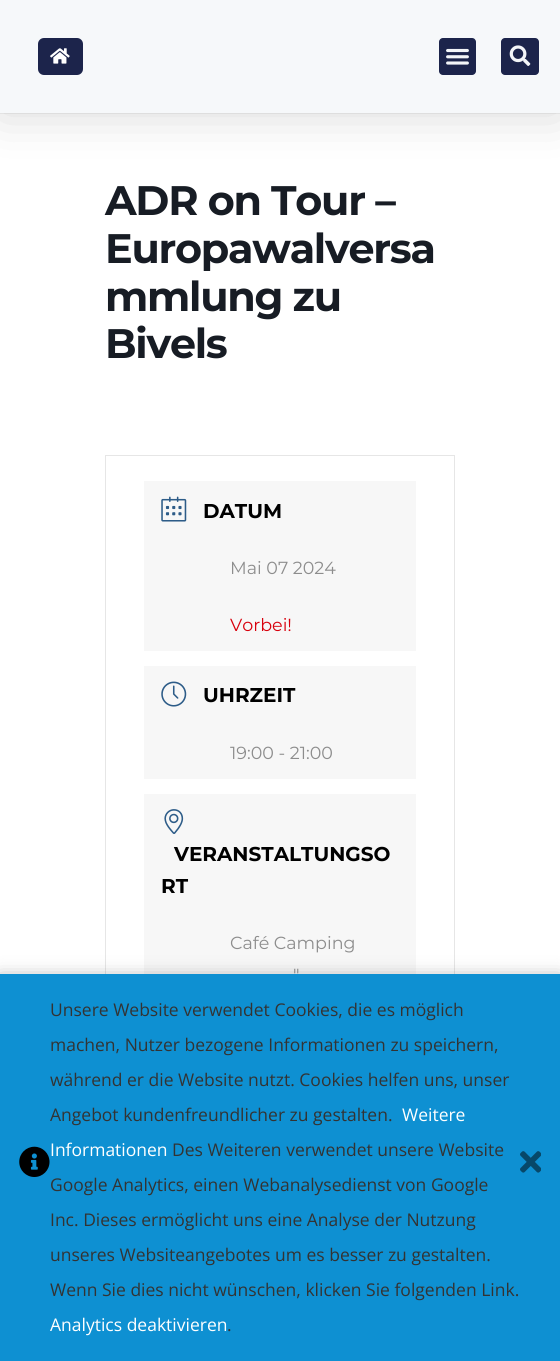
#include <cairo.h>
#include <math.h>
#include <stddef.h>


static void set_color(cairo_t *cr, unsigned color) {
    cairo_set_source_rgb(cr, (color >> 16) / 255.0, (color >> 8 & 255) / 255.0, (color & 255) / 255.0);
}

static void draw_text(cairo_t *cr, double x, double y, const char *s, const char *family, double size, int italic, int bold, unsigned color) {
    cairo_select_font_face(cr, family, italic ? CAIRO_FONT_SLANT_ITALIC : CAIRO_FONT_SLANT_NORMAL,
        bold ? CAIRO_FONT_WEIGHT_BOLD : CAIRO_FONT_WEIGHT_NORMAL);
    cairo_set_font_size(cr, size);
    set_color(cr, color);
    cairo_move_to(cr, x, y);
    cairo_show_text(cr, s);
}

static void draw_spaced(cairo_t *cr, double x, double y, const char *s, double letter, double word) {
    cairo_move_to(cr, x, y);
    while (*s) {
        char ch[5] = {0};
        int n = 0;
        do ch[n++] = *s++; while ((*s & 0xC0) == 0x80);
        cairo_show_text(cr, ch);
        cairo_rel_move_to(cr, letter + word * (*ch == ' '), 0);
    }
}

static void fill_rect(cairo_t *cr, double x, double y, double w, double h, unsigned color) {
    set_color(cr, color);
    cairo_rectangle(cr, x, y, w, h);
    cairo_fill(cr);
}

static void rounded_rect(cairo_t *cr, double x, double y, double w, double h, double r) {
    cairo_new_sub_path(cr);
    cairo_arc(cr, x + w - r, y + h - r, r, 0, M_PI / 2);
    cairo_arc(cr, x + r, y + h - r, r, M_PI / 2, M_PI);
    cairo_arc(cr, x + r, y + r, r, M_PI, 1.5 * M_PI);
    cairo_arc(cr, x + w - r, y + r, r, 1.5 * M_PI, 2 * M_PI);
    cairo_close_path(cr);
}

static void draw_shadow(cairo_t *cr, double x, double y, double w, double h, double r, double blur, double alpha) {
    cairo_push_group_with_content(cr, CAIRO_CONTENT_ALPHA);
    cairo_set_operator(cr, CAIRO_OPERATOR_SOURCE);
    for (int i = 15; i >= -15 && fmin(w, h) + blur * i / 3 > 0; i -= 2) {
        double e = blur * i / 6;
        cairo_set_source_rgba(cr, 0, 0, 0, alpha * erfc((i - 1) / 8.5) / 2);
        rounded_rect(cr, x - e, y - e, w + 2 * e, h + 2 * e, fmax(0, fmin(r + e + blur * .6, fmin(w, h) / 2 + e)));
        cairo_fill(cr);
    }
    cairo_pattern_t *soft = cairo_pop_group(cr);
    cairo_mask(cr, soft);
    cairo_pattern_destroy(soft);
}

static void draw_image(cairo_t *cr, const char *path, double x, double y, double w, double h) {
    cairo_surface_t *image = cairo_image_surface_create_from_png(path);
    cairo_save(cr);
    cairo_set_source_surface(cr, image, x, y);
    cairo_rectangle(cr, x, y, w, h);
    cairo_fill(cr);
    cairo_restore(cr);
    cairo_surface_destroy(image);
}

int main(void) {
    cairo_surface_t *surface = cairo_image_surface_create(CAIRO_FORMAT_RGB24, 560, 1361);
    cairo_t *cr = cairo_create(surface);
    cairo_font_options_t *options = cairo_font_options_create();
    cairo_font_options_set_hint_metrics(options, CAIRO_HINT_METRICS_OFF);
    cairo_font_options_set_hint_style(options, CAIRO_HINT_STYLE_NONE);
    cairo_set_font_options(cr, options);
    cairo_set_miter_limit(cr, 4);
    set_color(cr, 0xFFFFFF);
    cairo_paint(cr);
    fill_rect(cr, 0, 113, 560, 1, 0xF1F1F1);
    cairo_save(cr);
    cairo_set_fill_rule(cr, CAIRO_FILL_RULE_EVEN_ODD);
    cairo_new_path(cr);
    cairo_move_to(cr, 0, 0);
    cairo_line_to(cr, 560, 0);
    cairo_line_to(cr, 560, 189);
    cairo_line_to(cr, 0, 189);
    cairo_close_path(cr);
    cairo_move_to(cr, 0, 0);
    cairo_line_to(cr, 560, 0);
    cairo_line_to(cr, 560, 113);
    cairo_line_to(cr, 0, 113);
    cairo_close_path(cr);
    cairo_clip(cr);
    set_color(cr, 0x000000);
    draw_shadow(cr, 0, 0, 560, 113, 0, 25, 0.16);
    cairo_restore(cr);
    cairo_set_source_rgba(cr, 0.953, 0.961, 0.973, 0.7);
    cairo_rectangle(cr, 0, 0, 560, 113);
    cairo_fill(cr);
    set_color(cr, 0x1C244B);
    rounded_rect(cr, 38, 38, 45, 37, 6);
    cairo_fill(cr);
    draw_image(cr, "assets/img1.png", 50, 48, 20, 16);
    rounded_rect(cr, 439, 38, 37, 37, 4);
    cairo_fill(cr);
    draw_image(cr, "assets/img2.png", 446, 48, 23, 17);
    rounded_rect(cr, 501, 38, 38, 37, 4);
    cairo_fill(cr);
    draw_image(cr, "assets/img3.png", 509, 45, 22, 21);
    cairo_select_font_face(cr, "Montserrat", CAIRO_FONT_SLANT_NORMAL, CAIRO_FONT_WEIGHT_BOLD);
    cairo_set_font_size(cr, 41.25);
    set_color(cr, 0x171C24);
    draw_spaced(cr, 105, 215, "ADR on Tour –", -1.25, 0);
    draw_spaced(cr, 105, 263, "Europawalversa", -1.25, 0);
    draw_spaced(cr, 105, 311, "mmlung zu", -1.25, 0);
    draw_spaced(cr, 105, 358, "Bivels", -1.25, 0);
    cairo_rectangle(cr, 105.5, 455.5, 349, 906);
    set_color(cr, 0xE6E6E6);
    cairo_set_line_width(cr, 1);
    cairo_stroke(cr);
    fill_rect(cr, 144, 481, 272, 170, 0xF7F7F7);
    draw_image(cr, "assets/img4.png", 161, 496, 26, 26);
    draw_text(cr, 203, 518, "DATUM", "Montserrat", 20, 0, 1, 0x000000);
    draw_text(cr, 230, 574, "Mai 07 2024", "Montserrat", 17.5, 0, 0, 0x8D8D8D);
    draw_text(cr, 230, 631, "Vorbei!", "Montserrat", 17.5, 0, 0, 0xD8000C);
    fill_rect(cr, 144, 666, 272, 113, 0xF7F7F7);
    draw_image(cr, "assets/img5.png", 161, 681, 26, 26);
    draw_text(cr, 203, 702, "UHRZEIT", "Montserrat", 20, 0, 1, 0x000000);
    draw_text(cr, 230, 759, "19:00 - 21:00", "Montserrat", 17.5, 0, 0, 0x8D8D8D);
    fill_rect(cr, 144, 794, 272, 180, 0xF7F7F7);
    draw_image(cr, "assets/img6.png", 164, 809, 20, 25);
    draw_text(cr, 174, 861, "VERANSTALTUNGSO", "Montserrat", 20, 0, 1, 0x000000);
    draw_text(cr, 161, 893, "RT", "Montserrat", 20, 0, 1, 0x000000);
    draw_text(cr, 230, 949, "Café Camping", "Montserrat", 17.5, 0, 0, 0x8D8D8D);
    draw_text(cr, 293, 981, "\"", "Montserrat", 17.5, 0, 0, 0x8D8D8D);
    set_color(cr, 0x000000);
    draw_shadow(cr, 0, 979, 560, 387, 0, 9.5, 0.4);
    fill_rect(cr, 0, 974, 560, 387, 0x0E90D2);
    draw_image(cr, "assets/img7.png", 19, 1146, 31, 31);
    draw_text(cr, 50, 1016, "Unsere Website verwendet Cookies, die es möglich", "Open Sans", 17.5, 0, 0, 0x333333);
    draw_text(cr, 50, 1051, "machen, Nutzer bezogene Informationen zu speichern,", "Open Sans", 17.5, 0, 0, 0x333333);
    draw_text(cr, 50, 1086, "während er die Website nutzt. Cookies helfen uns, unser", "Open Sans", 17.5, 0, 0, 0x333333);
    draw_text(cr, 50, 1121, "Angebot kundenfreundlicher zu gestalten.", "Open Sans", 17.5, 0, 0, 0x333333);
    draw_text(cr, 402, 1121, "Weitere", "Open Sans", 17.5, 0, 0, 0xFFFFFF);
    draw_text(cr, 50, 1156, "Informationen", "Open Sans", 17.5, 0, 0, 0xFFFFFF);
    draw_text(cr, 172, 1156, "Des Weiteren verwendet unsere Website", "Open Sans", 17.5, 0, 0, 0x333333);
    draw_text(cr, 50, 1191, "Google Analytics, einen Webanalysedienst von Google", "Open Sans", 17.5, 0, 0, 0x333333);
    draw_text(cr, 50, 1226, "Inc. Dieses ermöglicht uns eine Analyse der Nutzung", "Open Sans", 17.5, 0, 0, 0x333333);
    draw_text(cr, 50, 1261, "unseres Websiteangebotes um es besser zu gestalten.", "Open Sans", 17.5, 0, 0, 0x333333);
    draw_text(cr, 50, 1296, "Wenn Sie dies nicht wünschen, klicken Sie folgenden Link.", "Open Sans", 17.5, 0, 0, 0x333333);
    draw_text(cr, 50, 1331, "Analytics deaktivieren", "Open Sans", 17.5, 0, 0, 0xFFFFFF);
    draw_text(cr, 227, 1331, ".", "Open Sans", 17.5, 0, 0, 0x333333);
    draw_image(cr, "assets/img8.png", 520, 1151, 21, 22);
    cairo_surface_write_to_png(surface, "output.png");
    cairo_font_options_destroy(options);
    cairo_destroy(cr);
    cairo_surface_destroy(surface);
    return 0;
}
